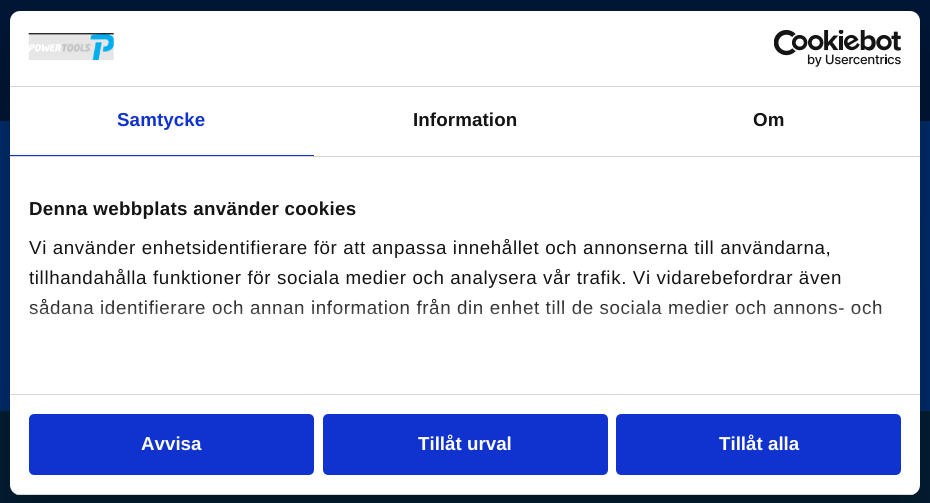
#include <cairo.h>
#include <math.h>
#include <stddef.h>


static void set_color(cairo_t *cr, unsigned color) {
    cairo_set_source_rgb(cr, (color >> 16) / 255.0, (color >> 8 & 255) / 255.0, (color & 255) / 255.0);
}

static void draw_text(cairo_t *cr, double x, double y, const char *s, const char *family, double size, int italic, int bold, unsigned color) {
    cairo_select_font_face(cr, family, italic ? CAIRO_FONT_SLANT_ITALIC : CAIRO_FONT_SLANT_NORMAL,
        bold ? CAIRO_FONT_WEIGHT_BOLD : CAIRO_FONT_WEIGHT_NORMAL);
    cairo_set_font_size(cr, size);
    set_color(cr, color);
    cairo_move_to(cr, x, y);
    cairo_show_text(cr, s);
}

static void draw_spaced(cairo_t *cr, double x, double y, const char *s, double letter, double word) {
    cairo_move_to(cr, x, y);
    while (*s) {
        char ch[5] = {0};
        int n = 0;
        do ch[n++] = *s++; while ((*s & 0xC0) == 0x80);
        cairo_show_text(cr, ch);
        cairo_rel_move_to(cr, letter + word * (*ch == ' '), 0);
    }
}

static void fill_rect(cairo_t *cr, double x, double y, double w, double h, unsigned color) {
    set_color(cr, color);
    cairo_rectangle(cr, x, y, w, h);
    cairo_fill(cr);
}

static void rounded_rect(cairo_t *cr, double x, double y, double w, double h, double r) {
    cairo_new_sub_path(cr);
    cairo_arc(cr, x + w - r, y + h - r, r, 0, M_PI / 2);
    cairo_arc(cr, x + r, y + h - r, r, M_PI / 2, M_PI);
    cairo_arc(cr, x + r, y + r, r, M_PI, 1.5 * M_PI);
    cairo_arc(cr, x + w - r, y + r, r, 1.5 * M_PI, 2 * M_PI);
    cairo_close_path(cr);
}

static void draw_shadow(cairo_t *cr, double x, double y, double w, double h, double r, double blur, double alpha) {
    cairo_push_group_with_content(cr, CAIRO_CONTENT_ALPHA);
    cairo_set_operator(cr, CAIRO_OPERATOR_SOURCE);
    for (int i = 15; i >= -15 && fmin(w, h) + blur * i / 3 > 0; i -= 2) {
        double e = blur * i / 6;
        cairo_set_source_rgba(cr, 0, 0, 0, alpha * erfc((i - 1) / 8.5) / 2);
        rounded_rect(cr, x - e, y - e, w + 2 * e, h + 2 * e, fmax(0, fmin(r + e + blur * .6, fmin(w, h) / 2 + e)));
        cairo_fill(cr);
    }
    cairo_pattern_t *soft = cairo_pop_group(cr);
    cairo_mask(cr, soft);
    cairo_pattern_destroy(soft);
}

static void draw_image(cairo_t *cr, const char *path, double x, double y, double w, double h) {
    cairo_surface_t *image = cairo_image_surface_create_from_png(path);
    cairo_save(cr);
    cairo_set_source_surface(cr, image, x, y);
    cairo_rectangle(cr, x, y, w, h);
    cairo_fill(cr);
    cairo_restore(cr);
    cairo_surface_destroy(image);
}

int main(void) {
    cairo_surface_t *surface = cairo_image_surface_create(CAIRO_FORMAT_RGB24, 930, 503);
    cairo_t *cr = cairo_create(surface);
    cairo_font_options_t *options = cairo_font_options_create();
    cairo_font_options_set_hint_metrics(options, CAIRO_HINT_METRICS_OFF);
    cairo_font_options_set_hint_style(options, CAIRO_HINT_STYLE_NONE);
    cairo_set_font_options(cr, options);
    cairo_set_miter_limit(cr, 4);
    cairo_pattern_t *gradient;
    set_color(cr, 0x002D6E);
    cairo_paint(cr);
    fill_rect(cr, 0, 0, 930, 121, 0x001737);
    set_color(cr, 0x000000);
    draw_shadow(cr, 655, 218, 263, 65, 2.5, 2, 0.3);
    fill_rect(cr, 0, 411, 930, 92, 0x021F34);
    set_color(cr, 0x000000);
    draw_shadow(cr, 10, 51, 910, 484, 10, 42.5, 0.3);
    set_color(cr, 0xFFFFFF);
    rounded_rect(cr, 10, 11, 910, 484, 10);
    cairo_fill(cr);
    fill_rect(cr, 10, 86, 910, 1, 0xD6D6D6);
    draw_image(cr, "assets/img1.png", 28, 33, 86, 27);
    draw_image(cr, "assets/img2.png", 774, 30, 127, 37);
    fill_rect(cr, 10, 156, 910, 1, 0xD6D6D6);
    fill_rect(cr, 10, 155, 304, 1, 0x1032CF);
    cairo_select_font_face(cr, "Liberation Sans", CAIRO_FONT_SLANT_NORMAL, CAIRO_FONT_WEIGHT_BOLD);
    cairo_set_font_size(cr, 18.75);
    draw_spaced(cr, 117, 126, "Samtycke", 0.1, 0);
    set_color(cr, 0x141414);
    draw_spaced(cr, 413, 126, "Information", 0.1, 0);
    draw_spaced(cr, 753, 126, "Om", 0.1, 0);
    fill_rect(cr, 10, 394, 910, 1, 0xD6D6D6);
    set_color(cr, 0x141414);
    draw_spaced(cr, 29, 215, "Denna webbplats använder cookies", 0.3, 0);
    cairo_select_font_face(cr, "Liberation Sans", CAIRO_FONT_SLANT_NORMAL, CAIRO_FONT_WEIGHT_NORMAL);
    draw_spaced(cr, 29, 254, "Vi använder enhetsidentifierare för att anpassa innehållet och annonserna till användarna,", 0.62, 0);
    draw_spaced(cr, 29, 284, "tillhandahålla funktioner för sociala medier och analysera vår trafik. Vi vidarebefordrar även", 0.62, 0);
    draw_spaced(cr, 29, 314, "sådana identifierare och annan information från din enhet till de sociala medier och annons- och", 0.62, 0);
    gradient = cairo_pattern_create_linear(457, 393, 457, 299);
    cairo_pattern_add_color_stop_rgba(gradient, 0, 1, 1, 1, 1);
    cairo_pattern_add_color_stop_rgba(gradient, 0.5, 1, 1, 1, 0.8);
    cairo_pattern_add_color_stop_rgba(gradient, 1, 1, 1, 1, 0);
    cairo_set_source(cr, gradient);
    cairo_pattern_destroy(gradient);
    cairo_rectangle(cr, 29, 300, 853, 15);
    cairo_fill(cr);
    cairo_save(cr);
    rounded_rect(cr, 10, 11, 910, 484, 10);
    cairo_clip(cr);
    fill_rect(cr, 10, 494, 910, 1, 0xD6D6D6);
    cairo_restore(cr);
    set_color(cr, 0x1032CF);
    rounded_rect(cr, 30.5, 415.5, 282, 58, 3.5);
    cairo_fill_preserve(cr);
    cairo_set_line_width(cr, 3);
    cairo_stroke(cr);
    draw_text(cr, 141, 450, "Avvisa", "Liberation Sans", 18.75, 0, 1, 0xFFFFFF);
    set_color(cr, 0x1032CF);
    rounded_rect(cr, 324.5, 415.5, 282, 58, 3.5);
    cairo_fill_preserve(cr);
    cairo_stroke(cr);
    draw_text(cr, 418, 450, "Tillåt urval", "Liberation Sans", 18.75, 0, 1, 0xFFFFFF);
    set_color(cr, 0x1032CF);
    rounded_rect(cr, 617.5, 415.5, 282, 58, 3.5);
    cairo_fill_preserve(cr);
    cairo_stroke(cr);
    draw_text(cr, 719, 450, "Tillåt alla", "Liberation Sans", 18.75, 0, 1, 0xFFFFFF);
    cairo_surface_write_to_png(surface, "output.png");
    cairo_font_options_destroy(options);
    cairo_destroy(cr);
    cairo_surface_destroy(surface);
    return 0;
}
